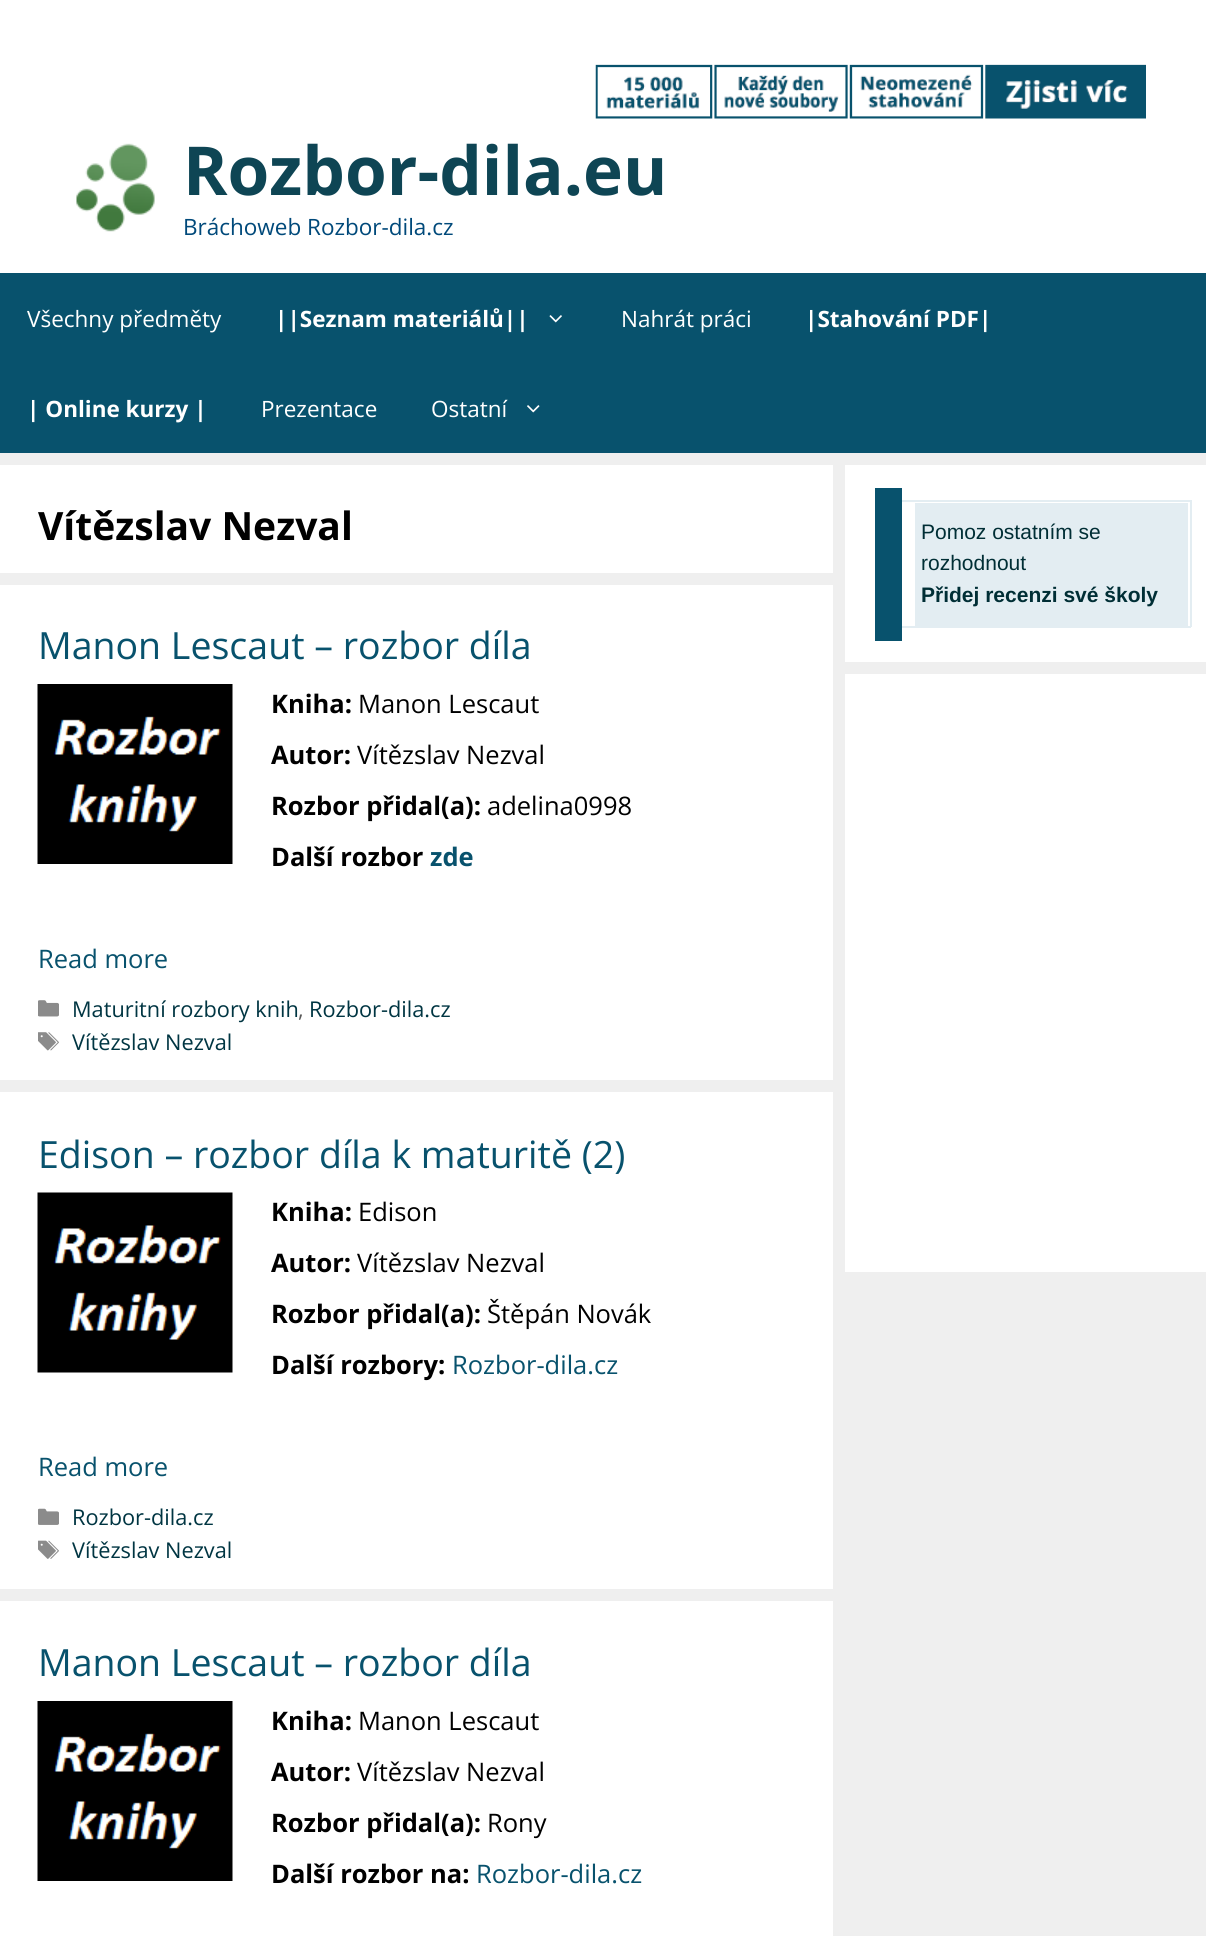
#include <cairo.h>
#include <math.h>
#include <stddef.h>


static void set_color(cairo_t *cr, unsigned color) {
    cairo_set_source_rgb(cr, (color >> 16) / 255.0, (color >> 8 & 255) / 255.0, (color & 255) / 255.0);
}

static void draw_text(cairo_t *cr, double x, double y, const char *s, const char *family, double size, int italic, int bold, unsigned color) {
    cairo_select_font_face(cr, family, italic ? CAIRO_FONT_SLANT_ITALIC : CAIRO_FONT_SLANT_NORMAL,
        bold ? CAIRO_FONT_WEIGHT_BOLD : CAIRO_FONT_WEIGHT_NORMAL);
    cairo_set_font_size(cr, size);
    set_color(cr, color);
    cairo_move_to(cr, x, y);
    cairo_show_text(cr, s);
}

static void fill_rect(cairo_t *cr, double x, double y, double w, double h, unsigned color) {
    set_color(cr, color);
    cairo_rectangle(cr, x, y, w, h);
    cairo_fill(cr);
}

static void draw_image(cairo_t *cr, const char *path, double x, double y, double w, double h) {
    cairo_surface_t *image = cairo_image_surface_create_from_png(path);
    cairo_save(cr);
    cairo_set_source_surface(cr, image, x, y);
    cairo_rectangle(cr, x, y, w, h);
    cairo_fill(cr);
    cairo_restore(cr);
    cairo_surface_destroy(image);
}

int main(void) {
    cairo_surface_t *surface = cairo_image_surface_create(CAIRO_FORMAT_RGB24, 1206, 1936);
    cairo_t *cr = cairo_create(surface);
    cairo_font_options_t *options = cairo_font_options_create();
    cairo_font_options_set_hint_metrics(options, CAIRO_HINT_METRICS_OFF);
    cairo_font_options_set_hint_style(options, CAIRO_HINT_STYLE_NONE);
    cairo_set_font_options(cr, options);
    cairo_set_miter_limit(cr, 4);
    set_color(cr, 0xEFEFEF);
    cairo_paint(cr);
    fill_rect(cr, 0, 0, 1206, 273, 0xFFFFFF);
    draw_image(cr, "assets/img1.png", 595, 64, 551, 55);
    draw_image(cr, "assets/img2.png", 76, 143, 79, 89);
    draw_text(cr, 183, 195, "Rozbor-dila.eu", "Open Sans", 67.5, 0, 1, 0x0E4554);
    draw_text(cr, 183, 235, "Bráchoweb Rozbor-dila.cz", "Open Sans", 22.5, 0, 0, 0x00497A);
    fill_rect(cr, 0, 273, 1206, 180, 0x08526D);
    draw_text(cr, 27, 327, "Všechny předměty", "Open Sans", 22.5, 0, 0, 0xFFFFFF);
    draw_text(cr, 275, 327, "||Seznam materiálů||", "Open Sans", 22.5, 0, 1, 0xFFFFFF);
    draw_image(cr, "assets/img3.png", 549, 315, 13, 8);
    draw_text(cr, 621, 327, "Nahrát práci", "Open Sans", 22.5, 0, 0, 0xFFFFFF);
    draw_text(cr, 805, 327, "|Stahování PDF|", "Open Sans", 22.5, 0, 1, 0xFFFFFF);
    draw_text(cr, 27, 417, "| Online kurzy |", "Open Sans", 22.5, 0, 1, 0xFFFFFF);
    draw_text(cr, 261, 417, "Prezentace", "Open Sans", 22.5, 0, 0, 0xFFFFFF);
    draw_text(cr, 431, 417, "Ostatní", "Open Sans", 22.5, 0, 0, 0xFFFFFF);
    draw_image(cr, "assets/img4.png", 527, 405, 13, 8);
    fill_rect(cr, 0, 465, 833, 108, 0xFFFFFF);
    draw_text(cr, 38, 540, "Vítězslav Nezval", "Open Sans", 39, 0, 1, 0x000000);
    fill_rect(cr, 0, 585, 833, 495, 0xFFFFFF);
    draw_text(cr, 38, 659, "Manon Lescaut – rozbor díla", "Open Sans", 37.5, 0, 0, 0x08526D);
    draw_image(cr, "assets/img5.png", 37, 684, 196, 180);
    draw_text(cr, 271, 713, "Kniha:", "Open Sans", 25.5, 0, 1, 0x000000);
    draw_text(cr, 358, 713, "Manon Lescaut", "Open Sans", 25.5, 0, 0, 0x000000);
    draw_text(cr, 271, 764, "Autor:", "Open Sans", 25.5, 0, 1, 0x000000);
    draw_text(cr, 357, 764, "Vítězslav Nezval", "Open Sans", 25.5, 0, 0, 0x000000);
    draw_text(cr, 271, 815, "Rozbor přidal(a):", "Open Sans", 25.5, 0, 1, 0x000000);
    draw_text(cr, 487, 815, "adelina0998", "Open Sans", 25.5, 0, 0, 0x000000);
    draw_text(cr, 271, 866, "Další rozbor", "Open Sans", 25.5, 0, 1, 0x000000);
    draw_text(cr, 430, 866, "zde", "Open Sans", 25.5, 0, 1, 0x08526D);
    draw_text(cr, 38, 968, "Read more", "Open Sans", 25.5, 0, 0, 0x08526D);
    draw_image(cr, "assets/img6.png", 38, 1000, 21, 17);
    draw_text(cr, 72, 1017, "Maturitní rozbory knih", "Open Sans", 21.75, 0, 0, 0x003542);
    draw_text(cr, 298, 1017, ",", "Open Sans", 21.75, 0, 0, 0x595959);
    draw_text(cr, 309, 1017, "Rozbor-dila.cz", "Open Sans", 21.75, 0, 0, 0x003542);
    draw_image(cr, "assets/img7.png", 38, 1032, 21, 19);
    draw_text(cr, 72, 1050, "Vítězslav Nezval", "Open Sans", 21.75, 0, 0, 0x003542);
    fill_rect(cr, 0, 1092, 833, 497, 0xFFFFFF);
    draw_text(cr, 38, 1168, "Edison – rozbor díla k maturitě (2)", "Open Sans", 37.5, 0, 0, 0x08526D);
    draw_image(cr, "assets/img8.png", 37, 1192, 196, 181);
    draw_text(cr, 271, 1221, "Kniha:", "Open Sans", 25.5, 0, 1, 0x000000);
    draw_text(cr, 358, 1221, "Edison", "Open Sans", 25.5, 0, 0, 0x000000);
    draw_text(cr, 271, 1272, "Autor:", "Open Sans", 25.5, 0, 1, 0x000000);
    draw_text(cr, 357, 1272, "Vítězslav Nezval", "Open Sans", 25.5, 0, 0, 0x000000);
    draw_text(cr, 271, 1323, "Rozbor přidal(a):", "Open Sans", 25.5, 0, 1, 0x000000);
    draw_text(cr, 487, 1323, "Štěpán Novák", "Open Sans", 25.5, 0, 0, 0x000000);
    draw_text(cr, 271, 1374, "Další rozbory:", "Open Sans", 25.5, 0, 1, 0x000000);
    draw_text(cr, 452, 1374, "Rozbor-dila.cz", "Open Sans", 25.5, 0, 0, 0x08526D);
    draw_text(cr, 38, 1476, "Read more", "Open Sans", 25.5, 0, 0, 0x08526D);
    draw_image(cr, "assets/img9.png", 38, 1508, 21, 17);
    draw_text(cr, 72, 1525, "Rozbor-dila.cz", "Open Sans", 21.75, 0, 0, 0x003542);
    draw_image(cr, "assets/img10.png", 38, 1540, 21, 19);
    draw_text(cr, 72, 1558, "Vítězslav Nezval", "Open Sans", 21.75, 0, 0, 0x003542);
    fill_rect(cr, 0, 1601, 833, 335, 0xFFFFFF);
    draw_text(cr, 38, 1676, "Manon Lescaut – rozbor díla", "Open Sans", 37.5, 0, 0, 0x08526D);
    draw_image(cr, "assets/img5.png", 37, 1701, 196, 180);
    draw_text(cr, 271, 1730, "Kniha:", "Open Sans", 25.5, 0, 1, 0x000000);
    draw_text(cr, 358, 1730, "Manon Lescaut", "Open Sans", 25.5, 0, 0, 0x000000);
    draw_text(cr, 271, 1781, "Autor:", "Open Sans", 25.5, 0, 1, 0x000000);
    draw_text(cr, 357, 1781, "Vítězslav Nezval", "Open Sans", 25.5, 0, 0, 0x000000);
    draw_text(cr, 271, 1832, "Rozbor přidal(a):", "Open Sans", 25.5, 0, 1, 0x000000);
    draw_text(cr, 487, 1832, "Rony", "Open Sans", 25.5, 0, 0, 0x000000);
    draw_text(cr, 271, 1883, "Další rozbor na:", "Open Sans", 25.5, 0, 1, 0x000000);
    draw_text(cr, 476, 1883, "Rozbor-dila.cz", "Open Sans", 25.5, 0, 0, 0x08526D);
    fill_rect(cr, 845, 465, 361, 197, 0xFFFFFF);
    fill_rect(cr, 902, 500, 289, 2, 0xE3EDF2);
    fill_rect(cr, 1190, 500, 2, 127, 0xE3EDF2);
    fill_rect(cr, 902, 626, 289, 2, 0xE3EDF2);
    fill_rect(cr, 875, 488, 27, 153, 0x08526D);
    fill_rect(cr, 915, 503, 273, 123, 0xE3EDF2);
    draw_text(cr, 921, 539, "Pomoz ostatním se", "Liberation Sans", 21, 0, 0, 0x002E35);
    draw_text(cr, 921, 570, "rozhodnout", "Liberation Sans", 21, 0, 0, 0x002E35);
    draw_text(cr, 921, 602, "Přidej recenzi své školy", "Liberation Sans", 21, 0, 1, 0x002E35);
    fill_rect(cr, 845, 674, 361, 598, 0xFFFFFF);
    cairo_surface_write_to_png(surface, "output.png");
    cairo_font_options_destroy(options);
    cairo_destroy(cr);
    cairo_surface_destroy(surface);
    return 0;
}
